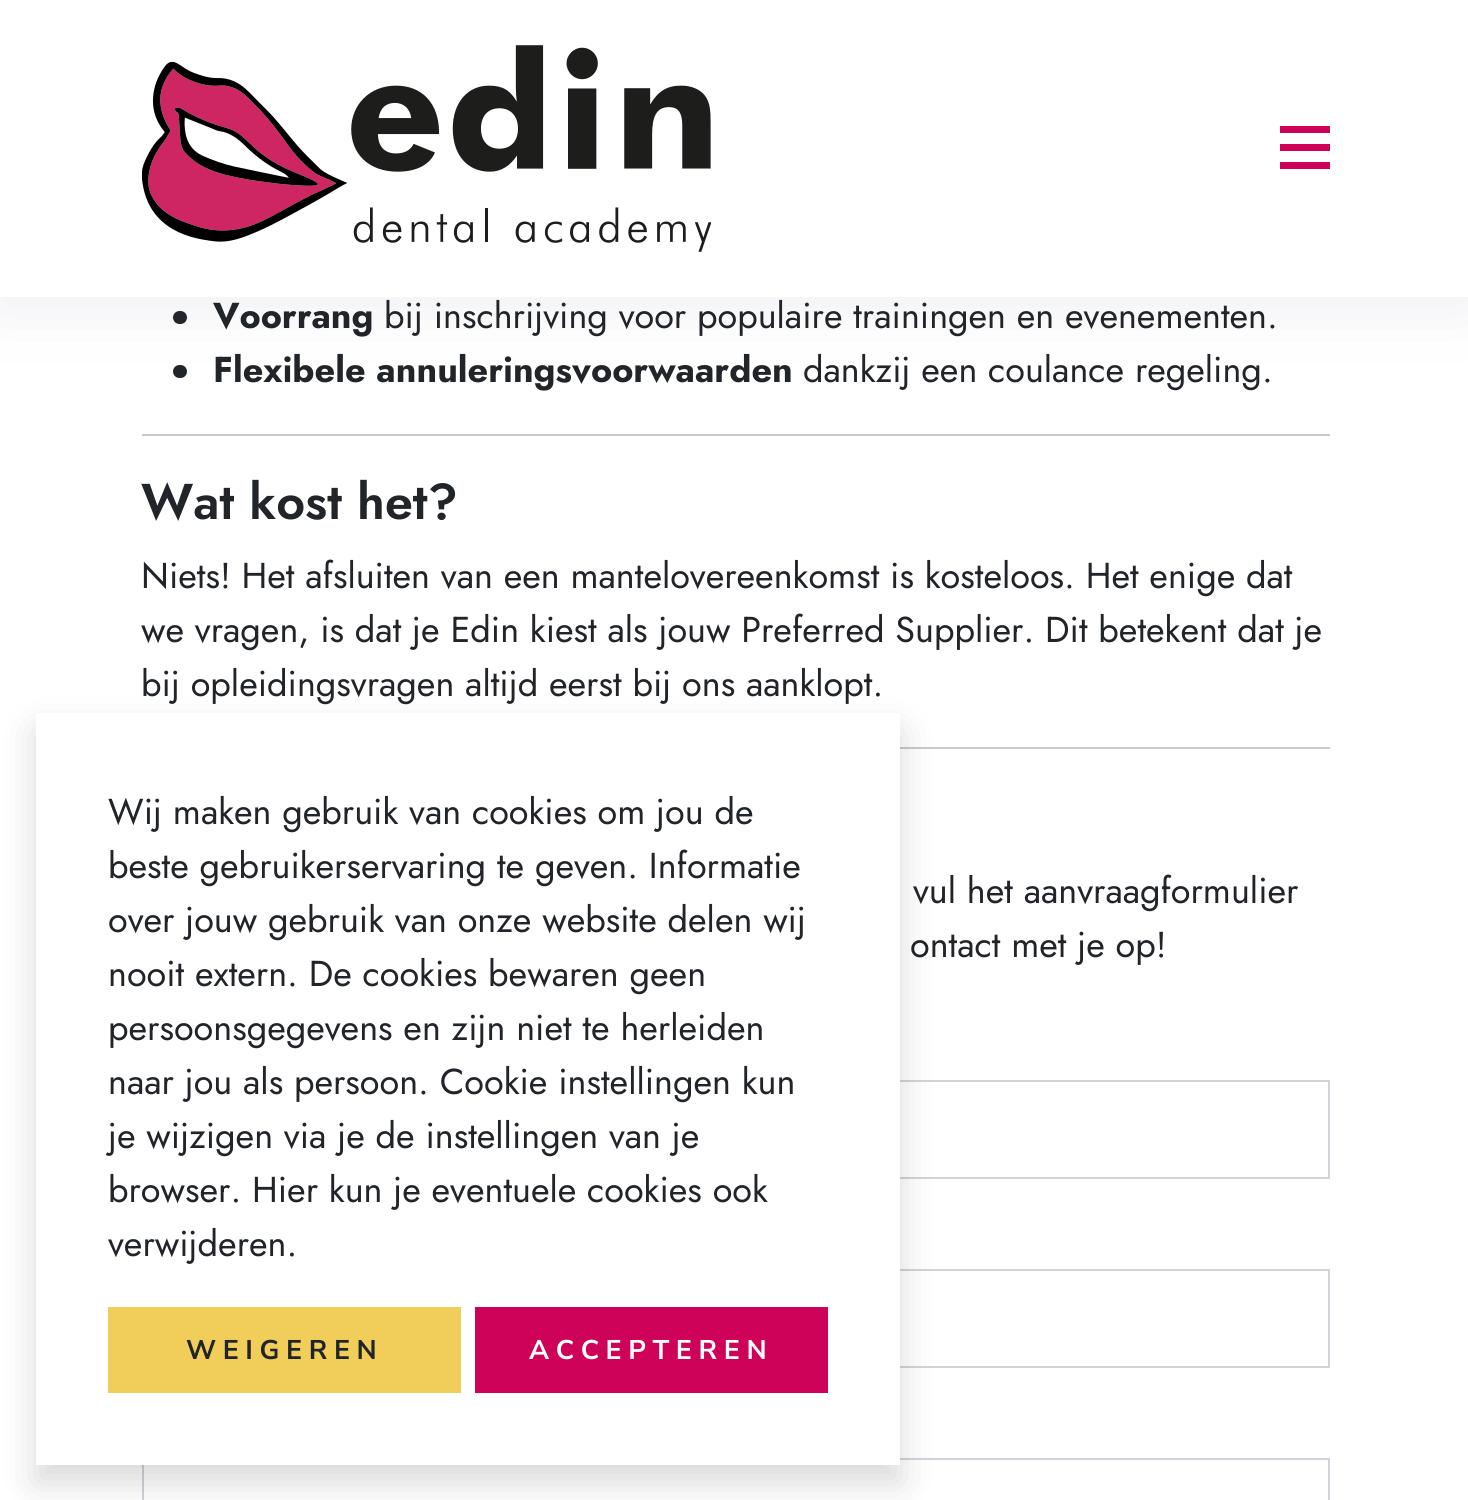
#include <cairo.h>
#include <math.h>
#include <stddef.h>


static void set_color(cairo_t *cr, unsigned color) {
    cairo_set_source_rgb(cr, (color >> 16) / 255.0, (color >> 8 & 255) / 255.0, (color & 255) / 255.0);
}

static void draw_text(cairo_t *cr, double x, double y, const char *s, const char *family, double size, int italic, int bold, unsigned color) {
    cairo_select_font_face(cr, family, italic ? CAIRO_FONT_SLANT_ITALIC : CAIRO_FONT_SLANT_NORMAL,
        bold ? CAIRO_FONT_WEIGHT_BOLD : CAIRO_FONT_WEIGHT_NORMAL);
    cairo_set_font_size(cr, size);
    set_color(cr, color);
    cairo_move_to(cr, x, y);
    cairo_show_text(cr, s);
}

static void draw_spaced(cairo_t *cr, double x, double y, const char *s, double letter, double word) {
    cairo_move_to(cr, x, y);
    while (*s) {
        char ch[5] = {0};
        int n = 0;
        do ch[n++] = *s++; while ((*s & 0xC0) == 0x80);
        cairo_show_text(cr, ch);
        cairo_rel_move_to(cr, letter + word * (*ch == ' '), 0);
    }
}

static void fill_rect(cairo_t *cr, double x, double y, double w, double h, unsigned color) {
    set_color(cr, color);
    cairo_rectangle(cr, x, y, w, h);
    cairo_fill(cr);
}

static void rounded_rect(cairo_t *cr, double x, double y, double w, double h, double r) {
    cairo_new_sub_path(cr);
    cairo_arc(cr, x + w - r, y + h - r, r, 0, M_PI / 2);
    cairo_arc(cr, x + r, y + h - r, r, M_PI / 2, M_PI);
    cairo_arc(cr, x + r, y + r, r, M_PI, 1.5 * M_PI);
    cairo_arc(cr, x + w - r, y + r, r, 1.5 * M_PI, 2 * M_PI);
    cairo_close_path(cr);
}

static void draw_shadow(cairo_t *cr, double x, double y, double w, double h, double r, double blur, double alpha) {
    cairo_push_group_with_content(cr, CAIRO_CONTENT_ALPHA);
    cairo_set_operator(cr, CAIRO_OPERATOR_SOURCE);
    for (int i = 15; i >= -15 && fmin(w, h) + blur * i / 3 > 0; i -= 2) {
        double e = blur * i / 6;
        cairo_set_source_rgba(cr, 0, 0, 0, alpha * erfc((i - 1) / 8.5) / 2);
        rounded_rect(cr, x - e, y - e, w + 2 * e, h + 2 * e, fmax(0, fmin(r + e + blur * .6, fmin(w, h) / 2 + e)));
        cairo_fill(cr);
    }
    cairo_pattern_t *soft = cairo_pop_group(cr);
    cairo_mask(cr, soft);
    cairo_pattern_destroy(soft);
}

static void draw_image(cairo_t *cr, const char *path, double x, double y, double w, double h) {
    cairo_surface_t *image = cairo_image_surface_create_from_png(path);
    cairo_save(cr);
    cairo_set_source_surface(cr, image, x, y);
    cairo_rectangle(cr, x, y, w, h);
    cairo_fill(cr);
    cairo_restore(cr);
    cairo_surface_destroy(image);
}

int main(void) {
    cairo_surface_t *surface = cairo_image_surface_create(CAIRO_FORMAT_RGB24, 1468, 1500);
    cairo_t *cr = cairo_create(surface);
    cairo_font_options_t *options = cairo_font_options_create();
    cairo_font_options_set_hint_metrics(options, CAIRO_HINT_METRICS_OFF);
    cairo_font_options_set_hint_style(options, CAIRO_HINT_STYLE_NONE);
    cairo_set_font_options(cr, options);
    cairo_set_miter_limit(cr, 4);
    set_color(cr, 0xFFFFFF);
    cairo_paint(cr);
    set_color(cr, 0x212529);
    rounded_rect(cr, 173, 311, 14, 13, 6.5);
    cairo_fill(cr);
    rounded_rect(cr, 173, 365, 14, 13, 6.5);
    cairo_fill(cr);
    set_color(cr, 0x405576);
    draw_shadow(cr, 0, 5, 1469, 297, 0, 34, 0.11);
    fill_rect(cr, 0, 0, 1468, 297, 0xFFFFFF);
    draw_image(cr, "assets/img1.png", 142, 45, 569, 207);
    fill_rect(cr, 1280, 144, 50, 7, 0xCE0259);
    fill_rect(cr, 1280, 126, 50, 7, 0xCE0259);
    fill_rect(cr, 1280, 162, 50, 7, 0xCE0259);
    draw_text(cr, 213, 328, "Voorrang", "Jost", 36, 0, 1, 0x212529);
    draw_text(cr, 384, 328, "bij inschrijving voor populaire trainingen en evenementen.", "Jost", 36, 0, 0, 0x212529);
    draw_text(cr, 213, 382, "Flexibele annuleringsvoorwaarden", "Jost", 36, 0, 1, 0x212529);
    draw_text(cr, 803, 382, "dankzij een coulance regeling.", "Jost", 36, 0, 0, 0x212529);
    fill_rect(cr, 142, 434, 1188, 2, 0xC8C9CA);
    draw_text(cr, 141, 519, "Wat kost het?", "Jost SemiBold", 50.25, 0, 0, 0x212529);
    draw_text(cr, 141, 588, "Niets! Het afsluiten van een mantelovereenkomst is kosteloos. Het enige dat", "Jost", 36, 0, 0, 0x212529);
    draw_text(cr, 141, 642, "we vragen, is dat je Edin kiest als jouw Preferred Supplier. Dit betekent dat je", "Jost", 36, 0, 0, 0x212529);
    draw_text(cr, 141, 696, "bij opleidingsvragen altijd eerst bij ons aanklopt.", "Jost", 36, 0, 0, 0x212529);
    fill_rect(cr, 900, 747, 430, 2, 0xC8C9CA);
    draw_text(cr, 913, 903, "vul het aanvraagformulier", "Jost", 36, 0, 0, 0x212529);
    draw_text(cr, 910, 957, "ontact met je op!", "Jost", 36, 0, 0, 0x212529);
    cairo_rectangle(cr, 143, 1081, 1186, 97);
    set_color(cr, 0xCED4DA);
    cairo_stroke(cr);
    cairo_rectangle(cr, 143, 1270, 1186, 97);
    cairo_stroke(cr);
    cairo_rectangle(cr, 143, 1459, 1186, 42);
    cairo_stroke(cr);
    set_color(cr, 0x000000);
    draw_shadow(cr, 36, 731, 864, 752, 0, 18, 0.15);
    fill_rect(cr, 36, 713, 864, 752, 0xFFFFFF);
    draw_text(cr, 108, 824, "Wij maken gebruik van cookies om jou de", "Jost", 36, 0, 0, 0x212529);
    draw_text(cr, 108, 878, "beste gebruikerservaring te geven. Informatie", "Jost", 36, 0, 0, 0x212529);
    draw_text(cr, 108, 932, "over jouw gebruik van onze website delen wij", "Jost", 36, 0, 0, 0x212529);
    draw_text(cr, 108, 986, "nooit extern. De cookies bewaren geen", "Jost", 36, 0, 0, 0x212529);
    draw_text(cr, 108, 1040, "persoonsgegevens en zijn niet te herleiden", "Jost", 36, 0, 0, 0x212529);
    draw_text(cr, 108, 1094, "naar jou als persoon. Cookie instellingen kun", "Jost", 36, 0, 0, 0x212529);
    draw_text(cr, 108, 1148, "je wijzigen via je de instellingen van je", "Jost", 36, 0, 0, 0x212529);
    draw_text(cr, 108, 1202, "browser. Hier kun je eventuele cookies ook", "Jost", 36, 0, 0, 0x212529);
    draw_text(cr, 108, 1256, "verwijderen.", "Jost", 36, 0, 0, 0x212529);
    fill_rect(cr, 108, 1307, 353, 86, 0xF1CE59);
    cairo_select_font_face(cr, "Nunito Sans", CAIRO_FONT_SLANT_NORMAL, CAIRO_FONT_WEIGHT_BOLD);
    cairo_set_font_size(cr, 27);
    set_color(cr, 0x212529);
    draw_spaced(cr, 186, 1359, "WEIGEREN", 6.6, 0);
    fill_rect(cr, 475, 1307, 353, 86, 0xCE0259);
    set_color(cr, 0xFFFFFF);
    draw_spaced(cr, 529, 1359, "ACCEPTEREN", 6.6, 0);
    cairo_surface_write_to_png(surface, "output.png");
    cairo_font_options_destroy(options);
    cairo_destroy(cr);
    cairo_surface_destroy(surface);
    return 0;
}
